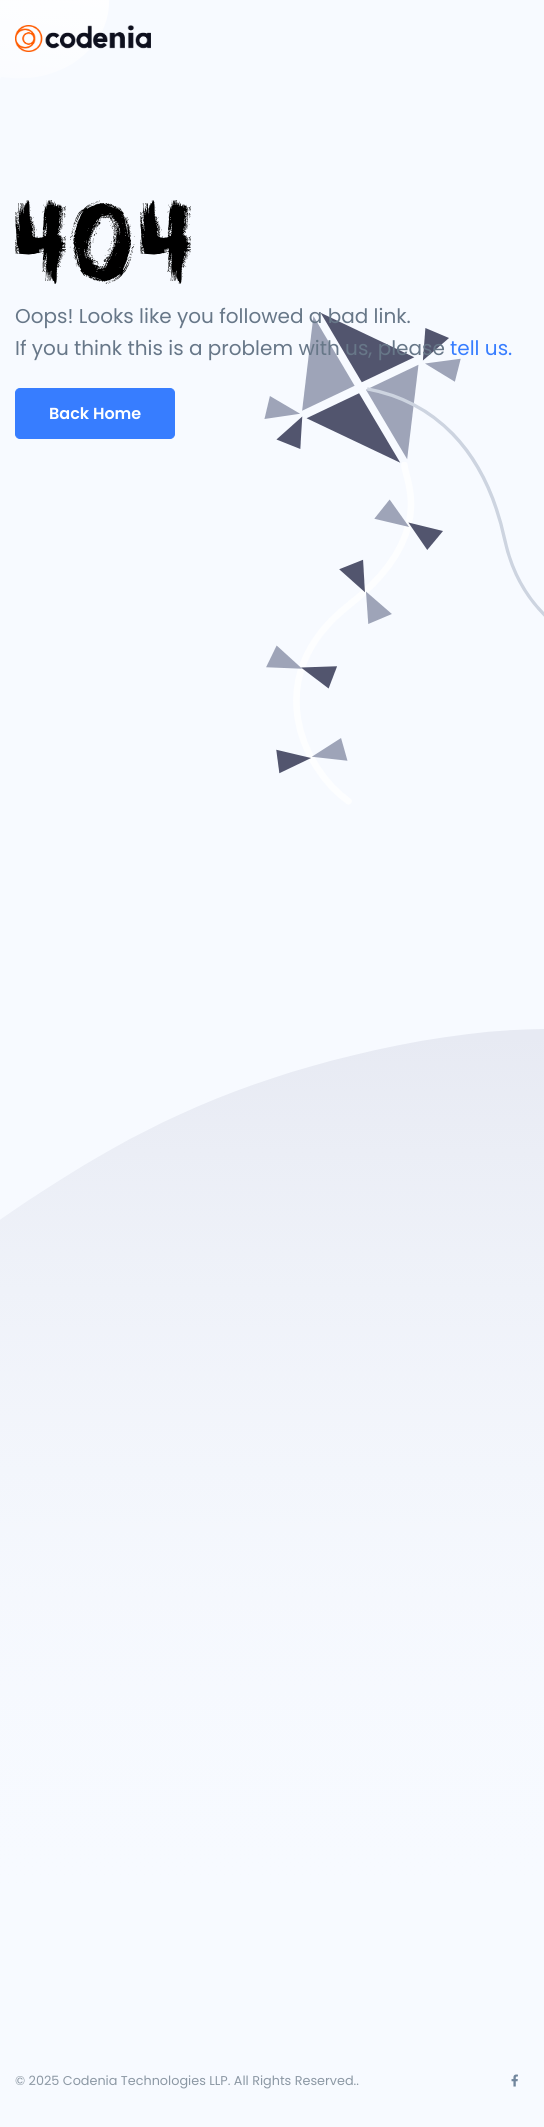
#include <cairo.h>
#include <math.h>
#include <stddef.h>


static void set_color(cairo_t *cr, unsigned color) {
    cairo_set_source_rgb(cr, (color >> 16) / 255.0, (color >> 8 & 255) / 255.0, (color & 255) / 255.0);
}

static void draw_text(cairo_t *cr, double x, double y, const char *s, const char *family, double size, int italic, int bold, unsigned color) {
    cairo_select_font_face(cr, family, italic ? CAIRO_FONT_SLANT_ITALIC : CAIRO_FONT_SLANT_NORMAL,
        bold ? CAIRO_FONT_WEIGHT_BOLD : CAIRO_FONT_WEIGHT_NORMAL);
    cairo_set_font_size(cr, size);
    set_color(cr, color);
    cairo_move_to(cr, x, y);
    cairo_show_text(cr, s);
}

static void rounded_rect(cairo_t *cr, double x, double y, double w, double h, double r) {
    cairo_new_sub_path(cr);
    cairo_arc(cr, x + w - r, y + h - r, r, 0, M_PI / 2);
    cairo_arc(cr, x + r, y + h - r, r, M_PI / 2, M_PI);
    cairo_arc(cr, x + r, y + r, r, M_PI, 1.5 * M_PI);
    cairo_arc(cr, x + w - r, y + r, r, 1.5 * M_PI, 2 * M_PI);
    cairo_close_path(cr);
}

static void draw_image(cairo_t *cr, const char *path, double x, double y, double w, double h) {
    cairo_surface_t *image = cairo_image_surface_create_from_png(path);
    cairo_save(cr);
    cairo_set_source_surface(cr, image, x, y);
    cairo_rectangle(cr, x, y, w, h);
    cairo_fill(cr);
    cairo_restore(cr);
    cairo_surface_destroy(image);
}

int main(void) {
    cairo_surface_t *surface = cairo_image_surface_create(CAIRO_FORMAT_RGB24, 544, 2127);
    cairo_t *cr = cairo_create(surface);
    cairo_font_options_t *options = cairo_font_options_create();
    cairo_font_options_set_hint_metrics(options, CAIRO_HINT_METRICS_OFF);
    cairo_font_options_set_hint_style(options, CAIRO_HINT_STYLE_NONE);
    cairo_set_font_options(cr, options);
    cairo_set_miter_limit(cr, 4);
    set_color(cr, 0xFFFFFF);
    cairo_paint(cr);
    draw_image(cr, "assets/img1.png", 0, 0, 544, 2127);
    draw_image(cr, "assets/img2.png", 15, 25, 136, 27);
    draw_image(cr, "assets/img3.png", 15, 200, 176, 84);
    draw_text(cr, 15, 323, "Oops! Looks like you followed a bad link.", "Poppins", 20, 0, 0, 0x677788);
    draw_text(cr, 15, 355, "If you think this is a problem with us, please", "Poppins", 20, 0, 0, 0x677788);
    draw_text(cr, 450, 355, "tell us.", "Poppins", 20, 0, 0, 0x377DFF);
    rounded_rect(cr, 15.5, 388.5, 159, 50, 4.5);
    cairo_fill_preserve(cr);
    cairo_set_line_width(cr, 1);
    cairo_stroke(cr);
    draw_text(cr, 49, 419, "Back Home", "Poppins SemiBold", 16, 0, 0, 0xFFFFFF);
    draw_text(cr, 15, 2085, "© 2025 Codenia Technologies LLP. All Rights Reserved..", "Poppins", 12.8, 0, 0, 0x8C98A4);
    draw_image(cr, "assets/img4.png", 511, 2074, 7, 13);
    cairo_surface_write_to_png(surface, "output.png");
    cairo_font_options_destroy(options);
    cairo_destroy(cr);
    cairo_surface_destroy(surface);
    return 0;
}
